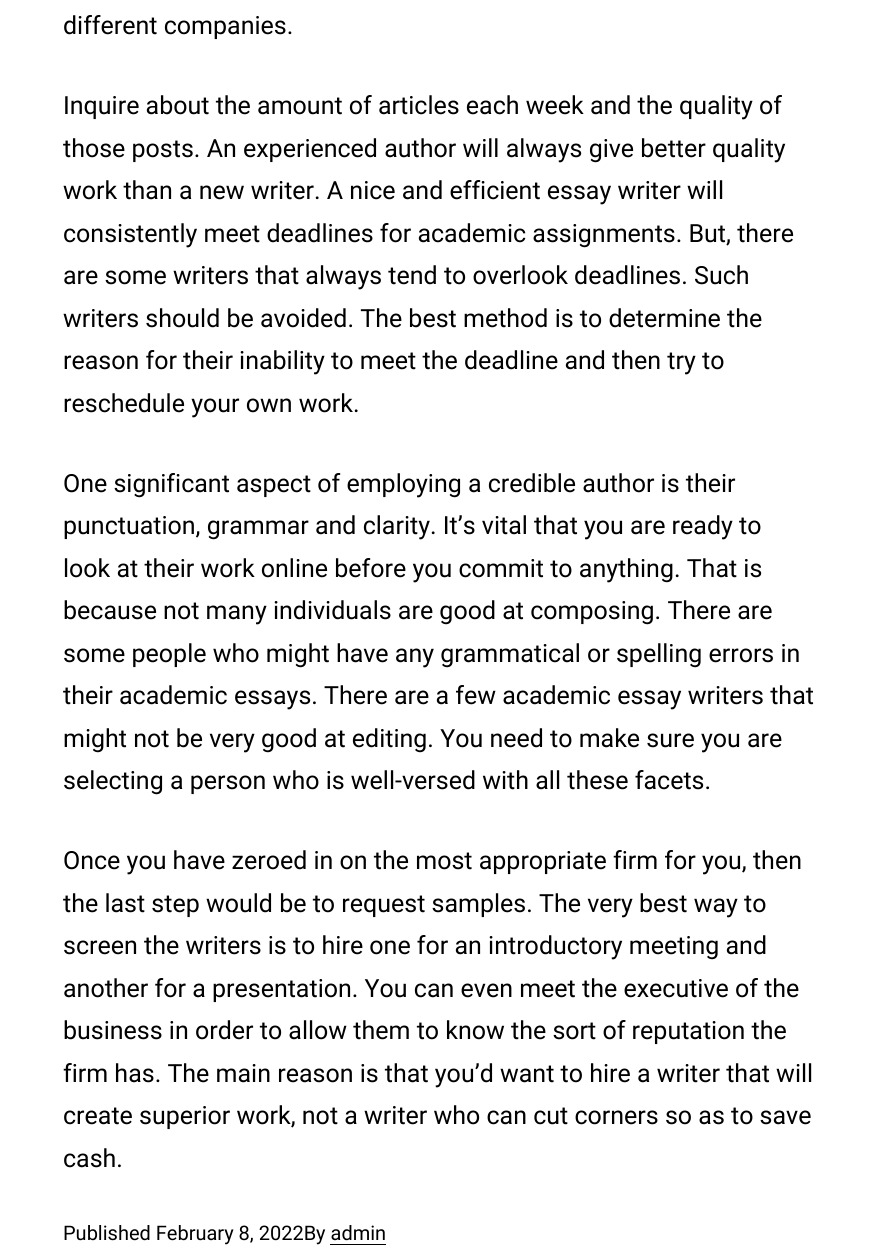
#include <cairo.h>
#include <math.h>
#include <stddef.h>


static void set_color(cairo_t *cr, unsigned color) {
    cairo_set_source_rgb(cr, (color >> 16) / 255.0, (color >> 8 & 255) / 255.0, (color & 255) / 255.0);
}

static void draw_text(cairo_t *cr, double x, double y, const char *s, const char *family, double size, int italic, int bold, unsigned color) {
    cairo_select_font_face(cr, family, italic ? CAIRO_FONT_SLANT_ITALIC : CAIRO_FONT_SLANT_NORMAL,
        bold ? CAIRO_FONT_WEIGHT_BOLD : CAIRO_FONT_WEIGHT_NORMAL);
    cairo_set_font_size(cr, size);
    set_color(cr, color);
    cairo_move_to(cr, x, y);
    cairo_show_text(cr, s);
}

static void fill_rect(cairo_t *cr, double x, double y, double w, double h, unsigned color) {
    set_color(cr, color);
    cairo_rectangle(cr, x, y, w, h);
    cairo_fill(cr);
}

int main(void) {
    cairo_surface_t *surface = cairo_image_surface_create(CAIRO_FORMAT_RGB24, 876, 1254);
    cairo_t *cr = cairo_create(surface);
    cairo_font_options_t *options = cairo_font_options_create();
    cairo_font_options_set_hint_metrics(options, CAIRO_HINT_METRICS_OFF);
    cairo_font_options_set_hint_style(options, CAIRO_HINT_STYLE_NONE);
    cairo_set_font_options(cr, options);
    cairo_set_miter_limit(cr, 4);
    set_color(cr, 0xFFFFFF);
    cairo_paint(cr);
    draw_text(cr, 63, 34, "different companies.", "Roboto", 25, 0, 0, 0x000000);
    draw_text(cr, 63, 114, "Inquire about the amount of articles each week and the quality of", "Roboto", 25, 0, 0, 0x000000);
    draw_text(cr, 63, 157, "those posts. An experienced author will always give better quality", "Roboto", 25, 0, 0, 0x000000);
    draw_text(cr, 63, 199, "work than a new writer. A nice and efficient essay writer will", "Roboto", 25, 0, 0, 0x000000);
    draw_text(cr, 63, 242, "consistently meet deadlines for academic assignments. But, there", "Roboto", 25, 0, 0, 0x000000);
    draw_text(cr, 63, 284, "are some writers that always tend to overlook deadlines. Such", "Roboto", 25, 0, 0, 0x000000);
    draw_text(cr, 63, 327, "writers should be avoided. The best method is to determine the", "Roboto", 25, 0, 0, 0x000000);
    draw_text(cr, 63, 369, "reason for their inability to meet the deadline and then try to", "Roboto", 25, 0, 0, 0x000000);
    draw_text(cr, 63, 412, "reschedule your own work.", "Roboto", 25, 0, 0, 0x000000);
    draw_text(cr, 63, 492, "One significant aspect of employing a credible author is their", "Roboto", 25, 0, 0, 0x000000);
    draw_text(cr, 63, 534, "punctuation, grammar and clarity. It’s vital that you are ready to", "Roboto", 25, 0, 0, 0x000000);
    draw_text(cr, 63, 577, "look at their work online before you commit to anything. That is", "Roboto", 25, 0, 0, 0x000000);
    draw_text(cr, 63, 619, "because not many individuals are good at composing. There are", "Roboto", 25, 0, 0, 0x000000);
    draw_text(cr, 63, 662, "some people who might have any grammatical or spelling errors in", "Roboto", 25, 0, 0, 0x000000);
    draw_text(cr, 63, 704, "their academic essays. There are a few academic essay writers that", "Roboto", 25, 0, 0, 0x000000);
    draw_text(cr, 63, 747, "might not be very good at editing. You need to make sure you are", "Roboto", 25, 0, 0, 0x000000);
    draw_text(cr, 63, 789, "selecting a person who is well-versed with all these facets.", "Roboto", 25, 0, 0, 0x000000);
    draw_text(cr, 63, 869, "Once you have zeroed in on the most appropriate firm for you, then", "Roboto", 25, 0, 0, 0x000000);
    draw_text(cr, 63, 912, "the last step would be to request samples. The very best way to", "Roboto", 25, 0, 0, 0x000000);
    draw_text(cr, 63, 954, "screen the writers is to hire one for an introductory meeting and", "Roboto", 25, 0, 0, 0x000000);
    draw_text(cr, 63, 997, "another for a presentation. You can even meet the executive of the", "Roboto", 25, 0, 0, 0x000000);
    draw_text(cr, 63, 1039, "business in order to allow them to know the sort of reputation the", "Roboto", 25, 0, 0, 0x000000);
    draw_text(cr, 63, 1082, "firm has. The main reason is that you’d want to hire a writer that will", "Roboto", 25, 0, 0, 0x000000);
    draw_text(cr, 63, 1124, "create superior work, not a writer who can cut corners so as to save", "Roboto", 25, 0, 0, 0x000000);
    draw_text(cr, 63, 1167, "cash.", "Roboto", 25, 0, 0, 0x000000);
    draw_text(cr, 63, 1240, "Published February 8, 2022By admin", "Roboto", 20, 0, 0, 0x000000);
    fill_rect(cr, 330, 1244, 56, 1, 0x000000);
    cairo_surface_write_to_png(surface, "output.png");
    cairo_font_options_destroy(options);
    cairo_destroy(cr);
    cairo_surface_destroy(surface);
    return 0;
}
